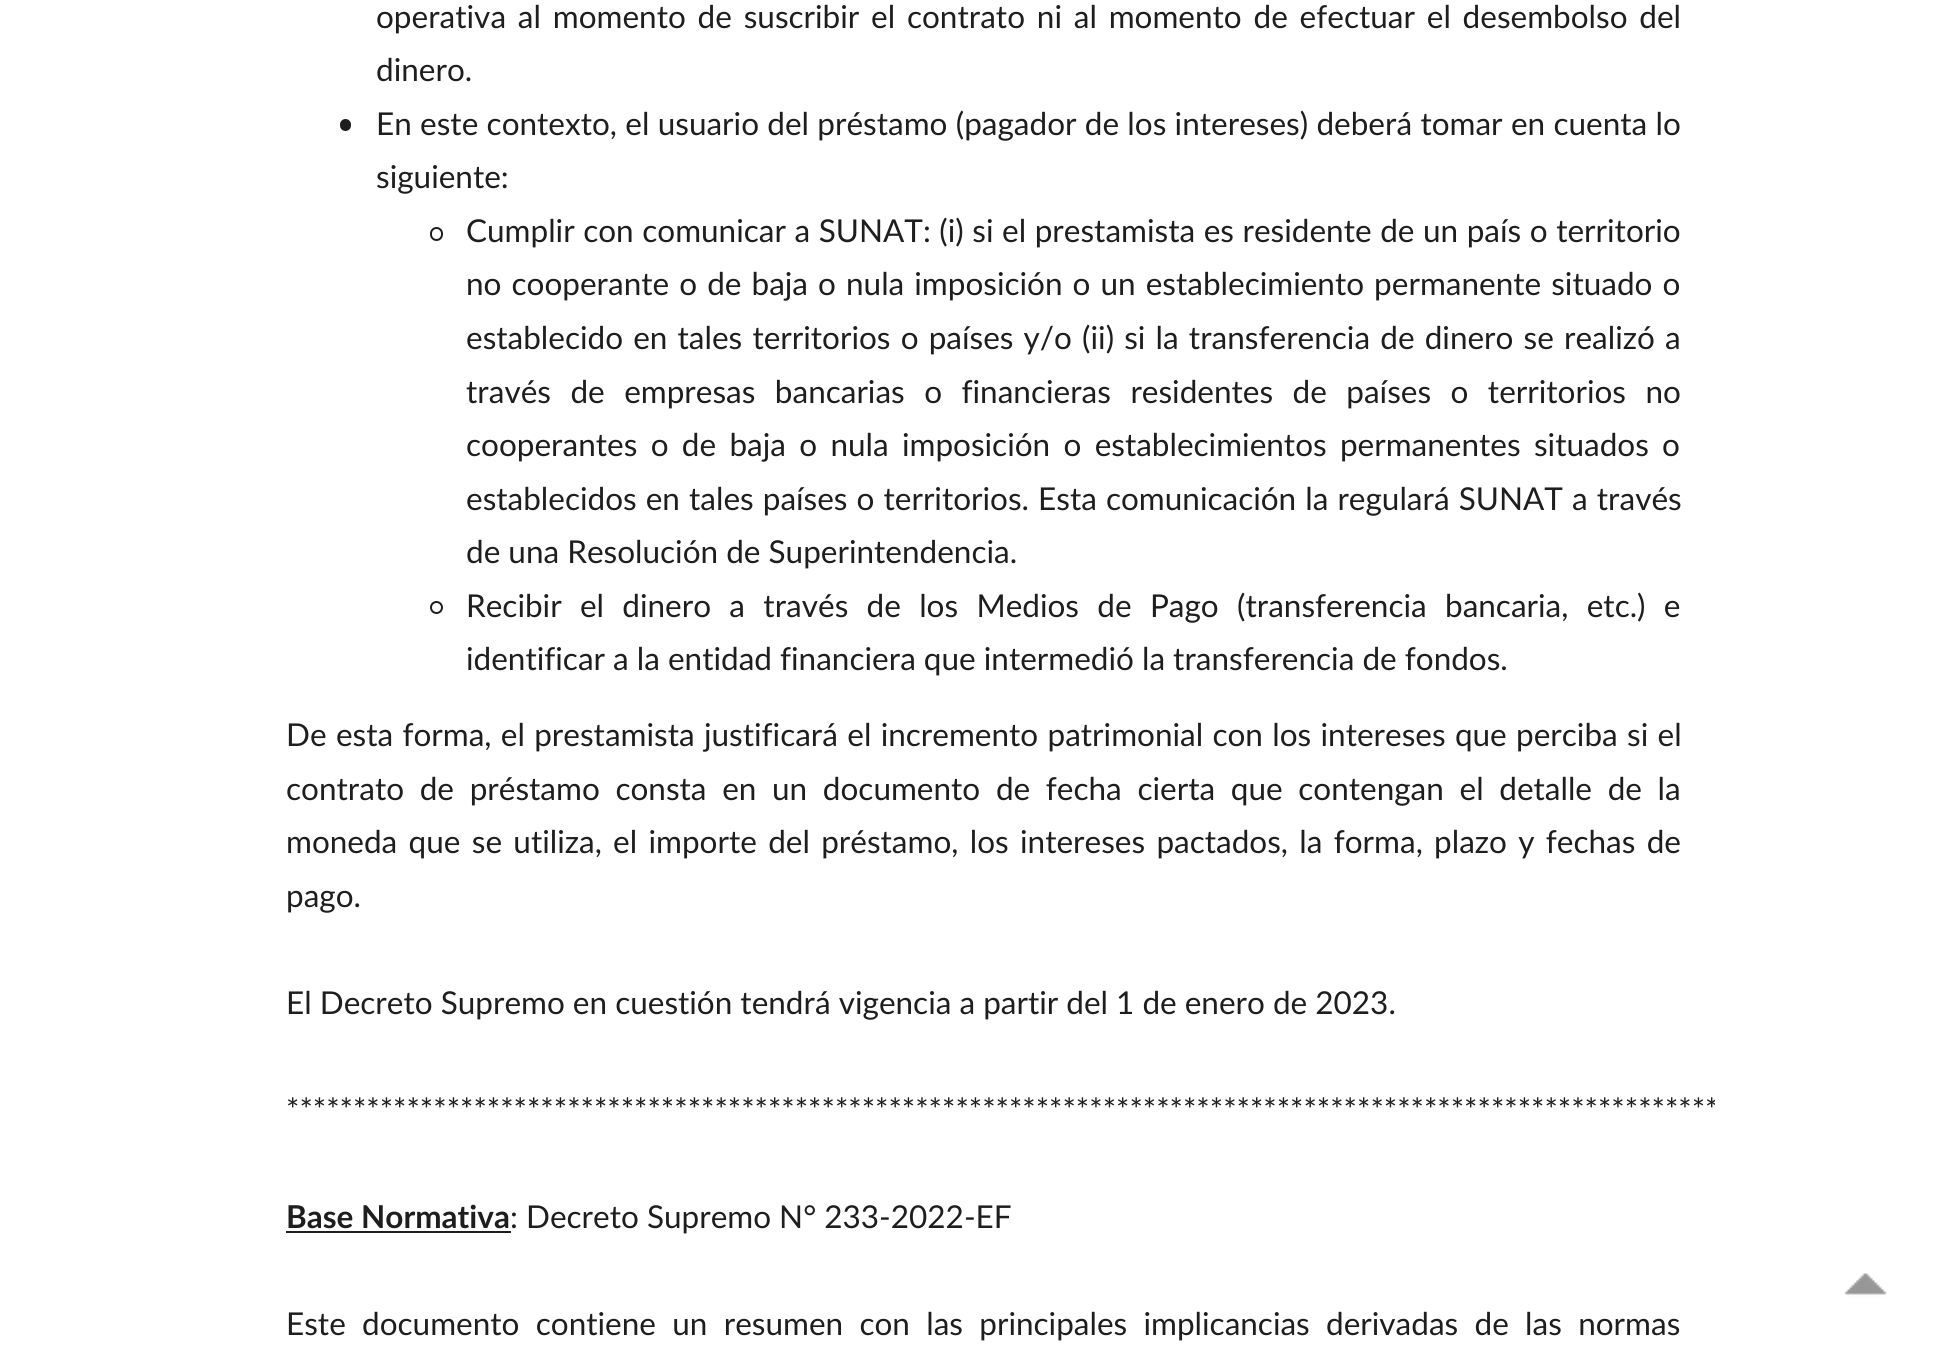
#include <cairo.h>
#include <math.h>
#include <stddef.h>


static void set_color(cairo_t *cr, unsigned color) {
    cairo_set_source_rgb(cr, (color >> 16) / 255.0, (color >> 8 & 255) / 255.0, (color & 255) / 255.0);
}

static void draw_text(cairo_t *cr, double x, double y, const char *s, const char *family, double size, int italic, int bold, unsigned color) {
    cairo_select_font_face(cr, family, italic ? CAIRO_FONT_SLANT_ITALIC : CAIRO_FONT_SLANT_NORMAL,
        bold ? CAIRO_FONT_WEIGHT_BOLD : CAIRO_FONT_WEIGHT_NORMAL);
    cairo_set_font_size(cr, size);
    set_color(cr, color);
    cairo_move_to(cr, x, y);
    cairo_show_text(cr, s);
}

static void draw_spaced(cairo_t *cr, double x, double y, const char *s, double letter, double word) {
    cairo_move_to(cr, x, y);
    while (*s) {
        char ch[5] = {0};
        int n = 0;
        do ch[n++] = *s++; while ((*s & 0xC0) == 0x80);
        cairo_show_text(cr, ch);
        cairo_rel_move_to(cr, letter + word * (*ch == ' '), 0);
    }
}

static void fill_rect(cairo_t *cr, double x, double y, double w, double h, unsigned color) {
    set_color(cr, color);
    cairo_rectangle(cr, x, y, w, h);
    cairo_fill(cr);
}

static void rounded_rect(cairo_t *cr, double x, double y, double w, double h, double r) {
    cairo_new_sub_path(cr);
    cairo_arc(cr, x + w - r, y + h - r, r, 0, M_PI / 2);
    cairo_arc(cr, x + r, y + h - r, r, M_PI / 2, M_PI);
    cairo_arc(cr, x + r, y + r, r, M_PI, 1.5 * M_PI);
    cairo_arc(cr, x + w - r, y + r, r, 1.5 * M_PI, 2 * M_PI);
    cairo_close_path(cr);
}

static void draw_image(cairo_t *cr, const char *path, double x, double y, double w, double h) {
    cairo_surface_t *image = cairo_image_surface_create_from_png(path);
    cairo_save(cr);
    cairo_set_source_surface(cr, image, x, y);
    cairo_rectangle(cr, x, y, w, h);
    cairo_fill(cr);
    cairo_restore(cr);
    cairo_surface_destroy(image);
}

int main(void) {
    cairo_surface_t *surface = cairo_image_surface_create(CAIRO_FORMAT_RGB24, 1942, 1367);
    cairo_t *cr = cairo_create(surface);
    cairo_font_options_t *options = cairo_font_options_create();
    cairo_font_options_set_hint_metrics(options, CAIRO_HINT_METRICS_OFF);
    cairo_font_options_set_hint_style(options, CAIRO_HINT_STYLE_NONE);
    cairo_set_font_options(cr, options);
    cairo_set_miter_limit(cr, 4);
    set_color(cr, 0xFFFFFF);
    cairo_paint(cr);
    cairo_select_font_face(cr, "Lato", CAIRO_FONT_SLANT_NORMAL, CAIRO_FONT_WEIGHT_NORMAL);
    cairo_set_font_size(cr, 31.5);
    set_color(cr, 0x1E1E1E);
    draw_spaced(cr, 376, 28, "operativa al momento de suscribir el contrato ni al momento de efectuar el desembolso del", 0, 3.75);
    draw_text(cr, 376, 81, "dinero.", "Lato", 31.5, 0, 0, 0x1E1E1E);
    rounded_rect(cr, 340, 119, 11, 12, 5.5);
    cairo_fill(cr);
    draw_spaced(cr, 376, 135, "En este contexto, el usuario del préstamo (pagador de los intereses) deberá tomar en cuenta lo", 0, 0.25);
    draw_text(cr, 376, 188, "siguiente:", "Lato", 31.5, 0, 0, 0x1E1E1E);
    rounded_rect(cr, 431, 228, 11, 12, 5.5);
    cairo_stroke(cr);
    draw_spaced(cr, 466, 242, "Cumplir con comunicar a SUNAT: (i) si el prestamista es residente de un país o territorio", 0, 0.5);
    draw_spaced(cr, 466, 295, "no cooperante o de baja o nula imposición o un establecimiento permanente situado o", 0, 2);
    draw_spaced(cr, 466, 349, "establecido en tales territorios o países y/o (ii) si la transferencia de dinero se realizó a", 0, 2.1);
    draw_spaced(cr, 466, 403, "través de empresas bancarias o financieras residentes de países o territorios no", 0, 11.4);
    draw_spaced(cr, 466, 456, "cooperantes o de baja o nula imposición o establecimientos permanentes situados o", 0, 5.25);
    draw_spaced(cr, 466, 510, "establecidos en tales países o territorios. Esta comunicación la regulará SUNAT a través", 0, 1);
    draw_text(cr, 466, 563, "de una Resolución de Superintendencia.", "Lato", 31.5, 0, 0, 0x1E1E1E);
    cairo_new_path(cr);
    cairo_arc(cr, 436.5, 607.5, 5.5, 0, 2 * M_PI);
    cairo_stroke(cr);
    draw_spaced(cr, 466, 617, "Recibir el dinero a través de los Medios de Pago (transferencia bancaria, etc.) e", 0, 10.25);
    draw_text(cr, 466, 670, "identificar a la entidad financiera que intermedió la transferencia de fondos.", "Lato", 31.5, 0, 0, 0x1E1E1E);
    draw_spaced(cr, 286, 746, "De esta forma, el prestamista justificará el incremento patrimonial con los intereses que perciba si el", 0, 1.25);
    draw_spaced(cr, 286, 800, "contrato de préstamo consta en un documento de fecha cierta que contengan el detalle de la", 0, 7.6);
    draw_spaced(cr, 286, 853, "moneda que se utiliza, el importe del préstamo, los intereses pactados, la forma, plazo y fechas de", 0, 3.25);
    draw_text(cr, 286, 907, "pago.", "Lato", 31.5, 0, 0, 0x1E1E1E);
    draw_text(cr, 286, 1014, "El Decreto Supremo en cuestión tendrá vigencia a partir del 1 de enero de 2023.", "Lato", 31.5, 0, 0, 0x1E1E1E);
    cairo_save(cr);
    cairo_rectangle(cr, 252, 0, 1463, 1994);
    cairo_clip(cr);
    draw_text(cr, 286, 1121, "***********************************************************************************************************", "Lato", 31.5, 0, 0, 0x1E1E1E);
    cairo_restore(cr);
    draw_text(cr, 286, 1228, "Base Normativa", "Lato", 31.5, 0, 1, 0x1E1E1E);
    fill_rect(cr, 286, 1231, 225, 2, 0x1E1E1E);
    draw_text(cr, 510, 1228, ": Decreto Supremo N° 233-2022-EF", "Lato", 31.5, 0, 0, 0x1E1E1E);
    draw_spaced(cr, 286, 1335, "Este documento contiene un resumen con las principales implicancias derivadas de las normas", 0, 8.25);
    draw_image(cr, "assets/img1.png", 1844, 1277, 43, 22);
    draw_image(cr, "assets/img2.png", 1844, 1273, 43, 26);
    cairo_surface_write_to_png(surface, "output.png");
    cairo_font_options_destroy(options);
    cairo_destroy(cr);
    cairo_surface_destroy(surface);
    return 0;
}
